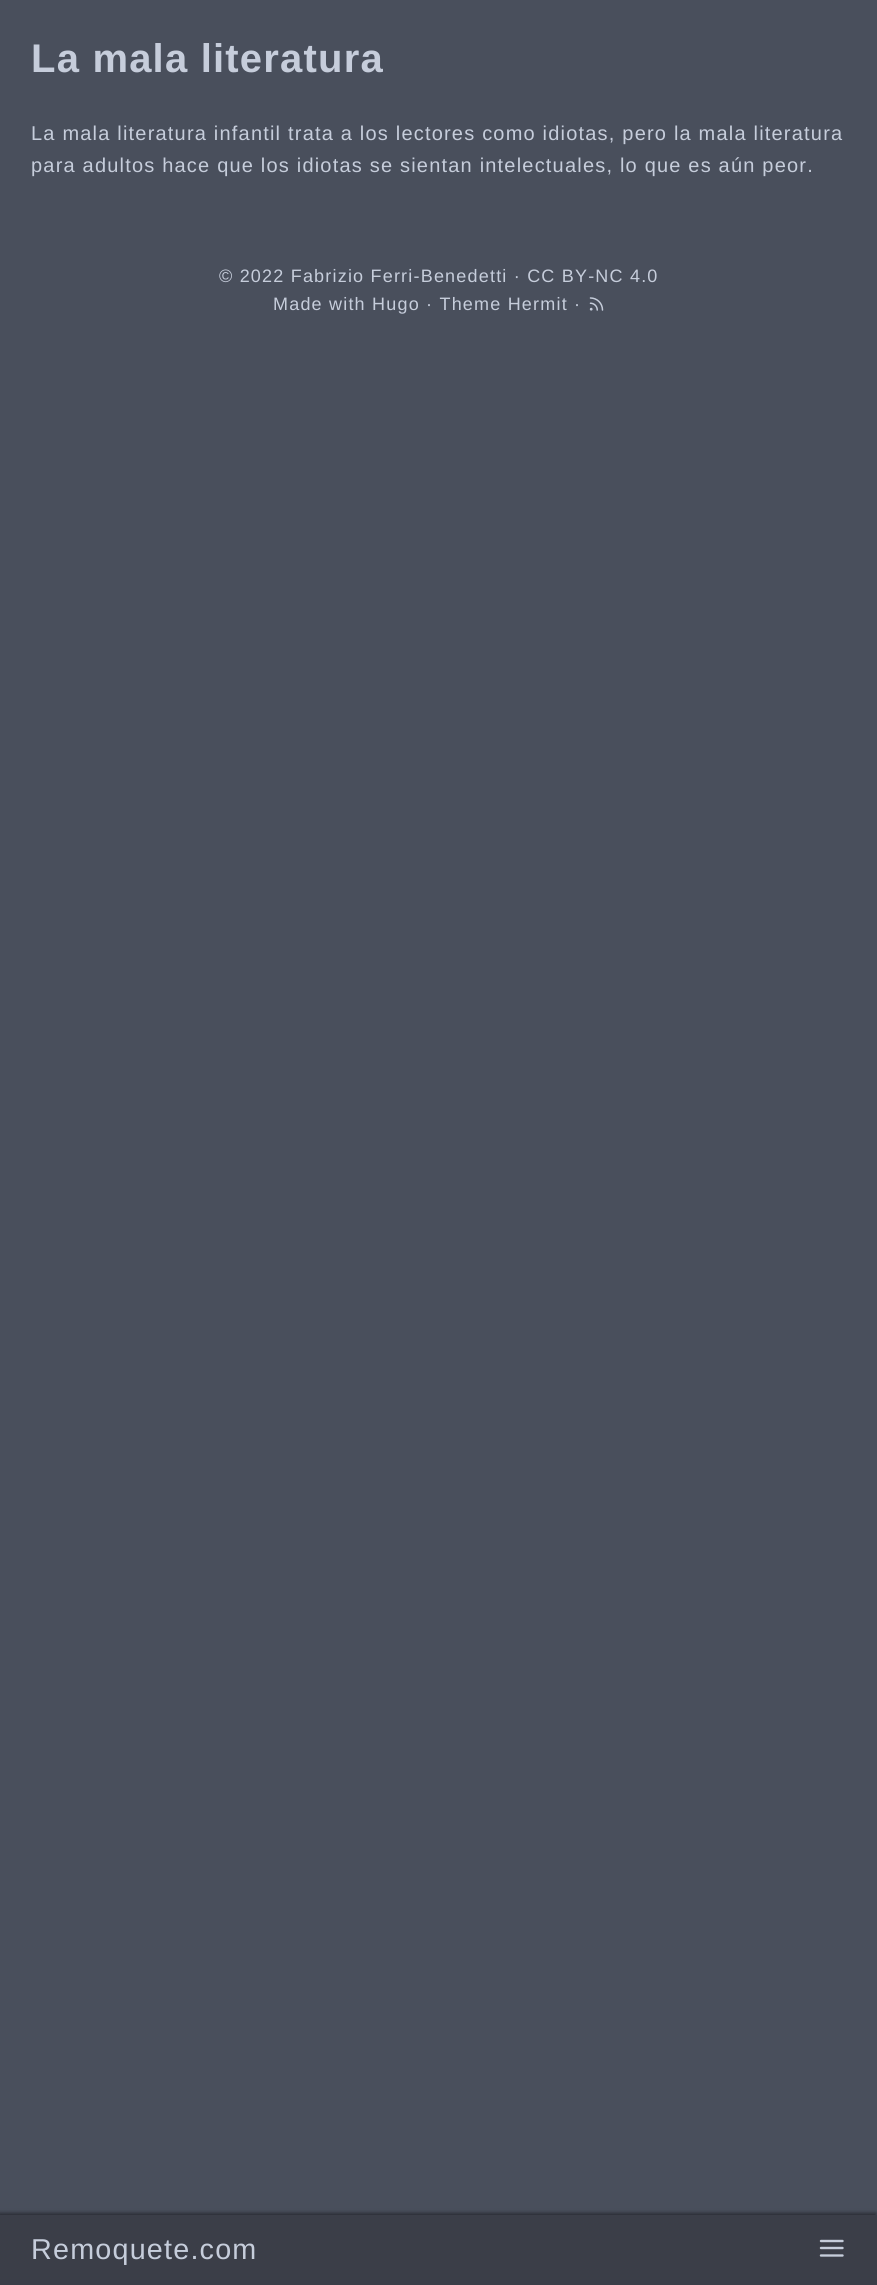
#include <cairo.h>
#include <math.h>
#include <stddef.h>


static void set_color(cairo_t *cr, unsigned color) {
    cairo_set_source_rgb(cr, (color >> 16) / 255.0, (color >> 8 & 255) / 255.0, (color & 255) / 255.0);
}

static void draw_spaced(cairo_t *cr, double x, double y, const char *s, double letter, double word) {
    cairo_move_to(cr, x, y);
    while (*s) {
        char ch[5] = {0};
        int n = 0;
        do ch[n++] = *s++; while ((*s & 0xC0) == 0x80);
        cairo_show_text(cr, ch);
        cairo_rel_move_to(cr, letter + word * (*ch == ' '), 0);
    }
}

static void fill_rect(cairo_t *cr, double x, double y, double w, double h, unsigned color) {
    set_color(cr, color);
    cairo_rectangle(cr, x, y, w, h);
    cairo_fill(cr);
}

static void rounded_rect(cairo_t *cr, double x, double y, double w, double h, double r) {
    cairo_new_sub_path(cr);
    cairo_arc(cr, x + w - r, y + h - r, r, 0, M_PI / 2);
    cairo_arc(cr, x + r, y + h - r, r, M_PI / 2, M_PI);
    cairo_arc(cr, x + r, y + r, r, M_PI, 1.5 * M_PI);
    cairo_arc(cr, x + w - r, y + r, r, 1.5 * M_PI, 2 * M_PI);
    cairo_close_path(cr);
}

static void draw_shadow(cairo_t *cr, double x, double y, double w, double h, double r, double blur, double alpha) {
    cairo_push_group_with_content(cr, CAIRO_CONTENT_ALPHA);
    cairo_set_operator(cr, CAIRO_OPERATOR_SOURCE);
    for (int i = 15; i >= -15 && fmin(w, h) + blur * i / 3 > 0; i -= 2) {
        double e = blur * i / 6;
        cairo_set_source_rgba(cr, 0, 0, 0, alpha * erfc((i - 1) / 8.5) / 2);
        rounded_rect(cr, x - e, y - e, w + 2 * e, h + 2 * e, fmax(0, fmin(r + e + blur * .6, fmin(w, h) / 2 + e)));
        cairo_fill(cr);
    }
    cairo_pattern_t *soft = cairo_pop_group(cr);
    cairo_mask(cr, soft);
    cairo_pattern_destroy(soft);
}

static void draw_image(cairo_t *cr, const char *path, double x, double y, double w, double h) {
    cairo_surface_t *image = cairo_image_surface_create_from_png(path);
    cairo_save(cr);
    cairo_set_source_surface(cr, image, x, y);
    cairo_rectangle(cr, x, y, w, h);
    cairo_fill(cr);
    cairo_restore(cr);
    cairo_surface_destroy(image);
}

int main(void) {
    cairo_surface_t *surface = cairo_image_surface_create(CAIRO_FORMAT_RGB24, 877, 2285);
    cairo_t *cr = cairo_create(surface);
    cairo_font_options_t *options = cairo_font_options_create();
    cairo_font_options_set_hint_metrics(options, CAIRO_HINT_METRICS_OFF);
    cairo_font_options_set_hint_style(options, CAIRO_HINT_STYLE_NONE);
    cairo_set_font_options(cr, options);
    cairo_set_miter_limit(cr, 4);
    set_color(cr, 0x494F5C);
    cairo_paint(cr);
    cairo_select_font_face(cr, "Liberation Sans", CAIRO_FONT_SLANT_NORMAL, CAIRO_FONT_WEIGHT_BOLD);
    cairo_set_font_size(cr, 40);
    set_color(cr, 0xC6CDDB);
    draw_spaced(cr, 31, 72, "La mala literatura", 1.2, 0);
    cairo_select_font_face(cr, "Liberation Sans", CAIRO_FONT_SLANT_NORMAL, CAIRO_FONT_WEIGHT_NORMAL);
    cairo_set_font_size(cr, 20);
    draw_spaced(cr, 31, 140, "La mala literatura infantil trata a los lectores como idiotas, pero la mala literatura", 1.2, 0);
    draw_spaced(cr, 31, 172, "para adultos hace que los idiotas se sientan intelectuales, lo que es aún peor.", 1.2, 0);
    cairo_set_font_size(cr, 18);
    draw_spaced(cr, 219, 282, "© 2022 Fabrizio Ferri-Benedetti · CC BY-NC 4.0", 1.2, 0);
    draw_spaced(cr, 273, 310, "Made with Hugo · Theme Hermit ·", 1.2, 0);
    draw_image(cr, "assets/img1.png", 589, 297, 15, 14);
    set_color(cr, 0x000000);
    draw_shadow(cr, -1, 2213, 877, 70, 0, 2, 0.45);
    fill_rect(cr, 0, 2215, 877, 70, 0x3B3E48);
    cairo_set_font_size(cr, 28.75);
    set_color(cr, 0xC6CDDB);
    draw_spaced(cr, 31, 2259, "Remoquete.com", 1.2, 0);
    cairo_new_path(cr);
    cairo_move_to(cr, 821, 2248);
    cairo_line_to(cr, 842.5, 2248);
    cairo_move_to(cr, 821, 2241);
    cairo_line_to(cr, 842.5, 2241);
    cairo_move_to(cr, 821, 2255.5);
    cairo_line_to(cr, 842.5, 2255.5);
    cairo_set_line_width(cr, 2.4);
    cairo_set_line_cap(cr, CAIRO_LINE_CAP_ROUND);
    cairo_set_line_join(cr, CAIRO_LINE_JOIN_ROUND);
    cairo_stroke(cr);
    cairo_surface_write_to_png(surface, "output.png");
    cairo_font_options_destroy(options);
    cairo_destroy(cr);
    cairo_surface_destroy(surface);
    return 0;
}
